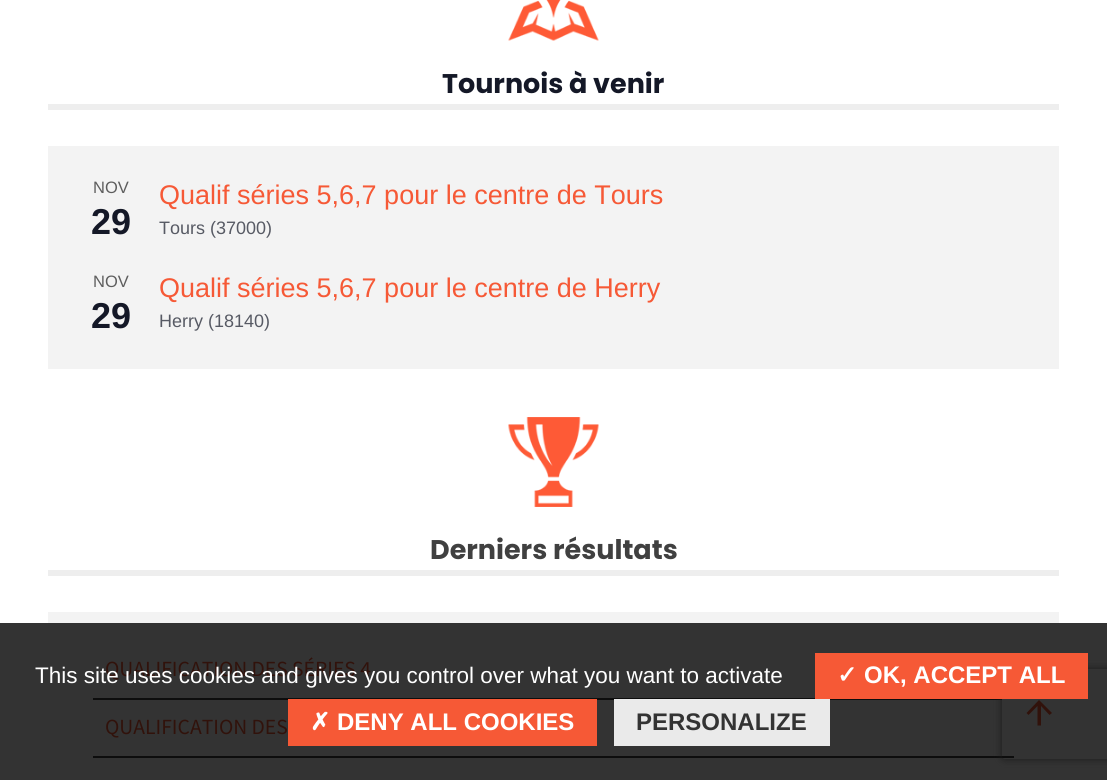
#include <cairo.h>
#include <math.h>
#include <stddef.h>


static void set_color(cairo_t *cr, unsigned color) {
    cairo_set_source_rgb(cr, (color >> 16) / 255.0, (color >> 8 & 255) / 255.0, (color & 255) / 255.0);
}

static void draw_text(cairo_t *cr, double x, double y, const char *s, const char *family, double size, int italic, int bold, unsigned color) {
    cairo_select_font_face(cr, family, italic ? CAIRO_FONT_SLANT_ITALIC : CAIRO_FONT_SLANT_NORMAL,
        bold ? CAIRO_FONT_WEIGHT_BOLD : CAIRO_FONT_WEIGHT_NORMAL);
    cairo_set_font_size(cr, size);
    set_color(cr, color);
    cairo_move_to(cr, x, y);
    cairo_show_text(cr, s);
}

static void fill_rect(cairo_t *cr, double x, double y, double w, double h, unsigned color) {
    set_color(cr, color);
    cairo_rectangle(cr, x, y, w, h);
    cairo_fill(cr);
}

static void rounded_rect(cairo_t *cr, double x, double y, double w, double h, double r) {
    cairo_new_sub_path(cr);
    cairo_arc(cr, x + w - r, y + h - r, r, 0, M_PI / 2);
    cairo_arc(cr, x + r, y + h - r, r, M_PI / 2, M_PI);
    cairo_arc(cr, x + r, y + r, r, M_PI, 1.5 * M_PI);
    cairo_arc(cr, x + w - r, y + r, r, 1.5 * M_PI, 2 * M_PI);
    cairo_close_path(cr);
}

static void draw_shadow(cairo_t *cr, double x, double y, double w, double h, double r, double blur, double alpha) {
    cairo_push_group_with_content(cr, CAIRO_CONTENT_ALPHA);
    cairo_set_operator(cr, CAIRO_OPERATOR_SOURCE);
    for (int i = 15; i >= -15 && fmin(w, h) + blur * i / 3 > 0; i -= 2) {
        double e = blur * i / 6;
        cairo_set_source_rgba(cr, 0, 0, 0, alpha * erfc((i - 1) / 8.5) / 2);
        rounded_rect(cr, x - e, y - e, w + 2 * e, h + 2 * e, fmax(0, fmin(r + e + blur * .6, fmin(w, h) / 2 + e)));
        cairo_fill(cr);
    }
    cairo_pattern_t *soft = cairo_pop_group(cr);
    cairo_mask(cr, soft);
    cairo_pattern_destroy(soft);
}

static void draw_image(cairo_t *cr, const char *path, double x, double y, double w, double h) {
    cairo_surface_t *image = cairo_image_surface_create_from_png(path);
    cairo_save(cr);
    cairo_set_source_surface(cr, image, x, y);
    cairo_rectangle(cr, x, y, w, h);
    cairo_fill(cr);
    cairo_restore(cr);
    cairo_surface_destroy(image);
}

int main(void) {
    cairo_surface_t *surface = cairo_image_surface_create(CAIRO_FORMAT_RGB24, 1107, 780);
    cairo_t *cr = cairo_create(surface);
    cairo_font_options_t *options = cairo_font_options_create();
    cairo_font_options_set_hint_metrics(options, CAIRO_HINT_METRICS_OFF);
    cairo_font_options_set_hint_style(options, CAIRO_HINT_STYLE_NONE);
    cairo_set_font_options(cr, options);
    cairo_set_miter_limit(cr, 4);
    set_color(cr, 0xFFFFFF);
    cairo_paint(cr);
    fill_rect(cr, 0, 623, 1107, 157, 0x333333);
    draw_image(cr, "assets/img1.png", 508, 0, 91, 41);
    fill_rect(cr, 48, 104, 1011, 6, 0xEEEEEE);
    draw_text(cr, 442, 93, "Tournois à venir", "Poppins", 27, 0, 1, 0x141827);
    fill_rect(cr, 48, 146, 1011, 223, 0xF3F3F3);
    draw_text(cr, 93, 193, "NOV", "Liberation Sans", 16.5, 0, 0, 0x5D5D5D);
    draw_text(cr, 91, 234, "29", "Liberation Sans", 36, 0, 1, 0x141827);
    draw_text(cr, 159, 204, "Qualif séries 5,6,7 pour le centre de Tours", "Liberation Sans", 27, 0, 0, 0xF65936);
    draw_text(cr, 159, 234, "Tours (37000)", "Liberation Sans", 18, 0, 0, 0x575A64);
    draw_text(cr, 93, 287, "NOV", "Liberation Sans", 16.5, 0, 0, 0x5D5D5D);
    draw_text(cr, 91, 328, "29", "Liberation Sans", 36, 0, 1, 0x141827);
    draw_text(cr, 159, 297, "Qualif séries 5,6,7 pour le centre de Herry", "Liberation Sans", 27, 0, 0, 0xF65936);
    draw_text(cr, 159, 327, "Herry (18140)", "Liberation Sans", 18, 0, 0, 0x575A64);
    fill_rect(cr, 48, 570, 1011, 6, 0xEEEEEE);
    draw_image(cr, "assets/img2.png", 508, 417, 91, 90);
    draw_text(cr, 430, 559, "Derniers résultats", "Poppins", 27, 0, 1, 0x404040);
    fill_rect(cr, 48, 612, 1011, 11, 0xF3F3F3);
    fill_rect(cr, 93, 698, 909, 2, 0x0D0D0D);
    draw_text(cr, 105, 676, "QUALIFICATION DES SÉRIES 4", "Source Sans Pro", 21.6, 0, 0, 0x31120B);
    fill_rect(cr, 93, 756, 921, 2, 0x0D0D0D);
    draw_text(cr, 105, 734, "QUALIFICATION DES", "Source Sans Pro", 21.6, 0, 0, 0x31120B);
    cairo_save(cr);
    cairo_set_fill_rule(cr, CAIRO_FILL_RULE_EVEN_ODD);
    cairo_new_path(cr);
    cairo_move_to(cr, 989, 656);
    cairo_line_to(cr, 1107, 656);
    cairo_line_to(cr, 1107, 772);
    cairo_line_to(cr, 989, 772);
    cairo_close_path(cr);
    cairo_move_to(cr, 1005, 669);
    cairo_line_to(cr, 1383, 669);
    cairo_curve_to(cr, 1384.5, 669, 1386, 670.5, 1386, 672);
    cairo_line_to(cr, 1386, 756);
    cairo_curve_to(cr, 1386, 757.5, 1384.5, 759, 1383, 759);
    cairo_line_to(cr, 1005, 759);
    cairo_curve_to(cr, 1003.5, 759, 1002, 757.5, 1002, 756);
    cairo_line_to(cr, 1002, 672);
    cairo_curve_to(cr, 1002, 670.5, 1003.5, 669, 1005, 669);
    cairo_close_path(cr);
    cairo_clip(cr);
    set_color(cr, 0x1A1A1A);
    draw_shadow(cr, 1002, 669, 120, 90, 3, 4, 1);
    cairo_restore(cr);
    cairo_new_path(cr);
    cairo_move_to(cr, 1026.5, 713);
    cairo_line_to(cr, 1039, 700);
    cairo_line_to(cr, 1052, 713);
    cairo_line_to(cr, 1049.5, 715);
    cairo_line_to(cr, 1041, 706);
    cairo_line_to(cr, 1041, 725.5);
    cairo_line_to(cr, 1037.5, 725.5);
    cairo_line_to(cr, 1037.5, 706);
    cairo_line_to(cr, 1028.5, 715);
    cairo_close_path(cr);
    cairo_fill(cr);
    draw_text(cr, 35, 683, "This site uses cookies and gives you control over what you want to activate", "Liberation Sans", 22.5, 0, 0, 0xFFFFFF);
    fill_rect(cr, 815, 653, 273, 46, 0xF65936);
    draw_text(cr, 837, 683, "✓", "DejaVu Sans", 24, 0, 1, 0xFFFFFF);
    draw_text(cr, 864, 683, "OK, ACCEPT ALL", "Liberation Sans", 24, 0, 1, 0xFFFFFF);
    fill_rect(cr, 288, 699, 309, 47, 0xF65936);
    draw_text(cr, 310, 730, "✗", "DejaVu Sans", 24, 0, 1, 0xFFFFFF);
    draw_text(cr, 337, 730, "DENY ALL COOKIES", "Liberation Sans", 24, 0, 1, 0xFFFFFF);
    fill_rect(cr, 614, 699, 216, 47, 0xEAEAEA);
    draw_text(cr, 636, 730, "PERSONALIZE", "Liberation Sans", 24, 0, 1, 0x333333);
    cairo_surface_write_to_png(surface, "output.png");
    cairo_font_options_destroy(options);
    cairo_destroy(cr);
    cairo_surface_destroy(surface);
    return 0;
}
